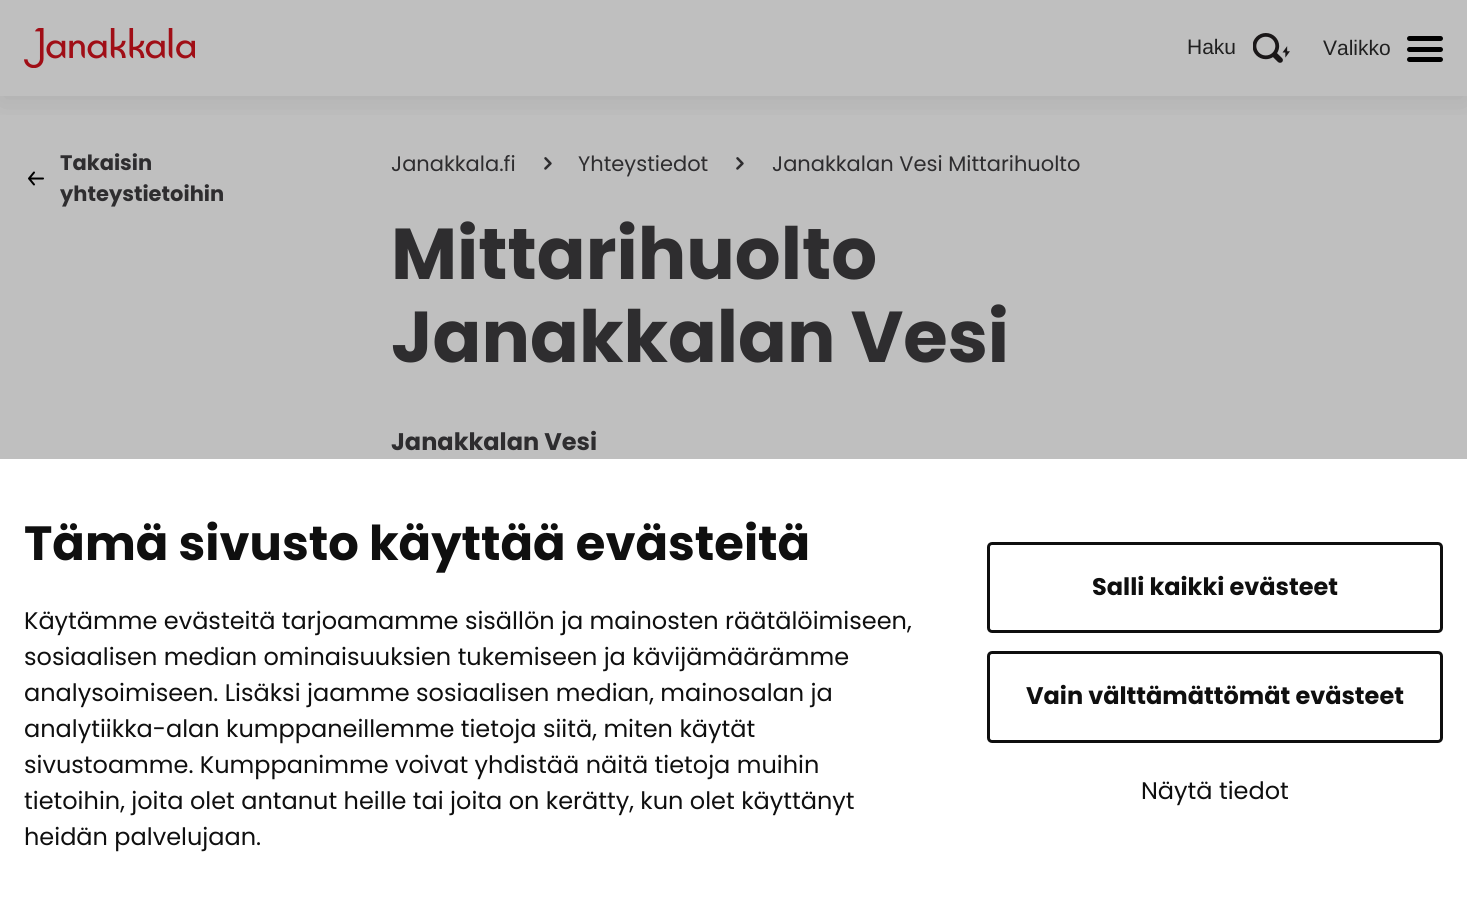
#include <cairo.h>
#include <math.h>
#include <stddef.h>


static void set_color(cairo_t *cr, unsigned color) {
    cairo_set_source_rgb(cr, (color >> 16) / 255.0, (color >> 8 & 255) / 255.0, (color & 255) / 255.0);
}

static void draw_text(cairo_t *cr, double x, double y, const char *s, const char *family, double size, int italic, int bold, unsigned color) {
    cairo_select_font_face(cr, family, italic ? CAIRO_FONT_SLANT_ITALIC : CAIRO_FONT_SLANT_NORMAL,
        bold ? CAIRO_FONT_WEIGHT_BOLD : CAIRO_FONT_WEIGHT_NORMAL);
    cairo_set_font_size(cr, size);
    set_color(cr, color);
    cairo_move_to(cr, x, y);
    cairo_show_text(cr, s);
}

static void fill_rect(cairo_t *cr, double x, double y, double w, double h, unsigned color) {
    set_color(cr, color);
    cairo_rectangle(cr, x, y, w, h);
    cairo_fill(cr);
}

static void rounded_rect(cairo_t *cr, double x, double y, double w, double h, double r) {
    cairo_new_sub_path(cr);
    cairo_arc(cr, x + w - r, y + h - r, r, 0, M_PI / 2);
    cairo_arc(cr, x + r, y + h - r, r, M_PI / 2, M_PI);
    cairo_arc(cr, x + r, y + r, r, M_PI, 1.5 * M_PI);
    cairo_arc(cr, x + w - r, y + r, r, 1.5 * M_PI, 2 * M_PI);
    cairo_close_path(cr);
}

static void draw_shadow(cairo_t *cr, double x, double y, double w, double h, double r, double blur, double alpha) {
    cairo_push_group_with_content(cr, CAIRO_CONTENT_ALPHA);
    cairo_set_operator(cr, CAIRO_OPERATOR_SOURCE);
    for (int i = 15; i >= -15 && fmin(w, h) + blur * i / 3 > 0; i -= 2) {
        double e = blur * i / 6;
        cairo_set_source_rgba(cr, 0, 0, 0, alpha * erfc((i - 1) / 8.5) / 2);
        rounded_rect(cr, x - e, y - e, w + 2 * e, h + 2 * e, fmax(0, fmin(r + e + blur * .6, fmin(w, h) / 2 + e)));
        cairo_fill(cr);
    }
    cairo_pattern_t *soft = cairo_pop_group(cr);
    cairo_mask(cr, soft);
    cairo_pattern_destroy(soft);
}

static void draw_image(cairo_t *cr, const char *path, double x, double y, double w, double h) {
    cairo_surface_t *image = cairo_image_surface_create_from_png(path);
    cairo_save(cr);
    cairo_set_source_surface(cr, image, x, y);
    cairo_rectangle(cr, x, y, w, h);
    cairo_fill(cr);
    cairo_restore(cr);
    cairo_surface_destroy(image);
}

int main(void) {
    cairo_surface_t *surface = cairo_image_surface_create(CAIRO_FORMAT_RGB24, 1467, 902);
    cairo_t *cr = cairo_create(surface);
    cairo_font_options_t *options = cairo_font_options_create();
    cairo_font_options_set_hint_metrics(options, CAIRO_HINT_METRICS_OFF);
    cairo_font_options_set_hint_style(options, CAIRO_HINT_STYLE_NONE);
    cairo_set_font_options(cr, options);
    cairo_set_miter_limit(cr, 4);
    set_color(cr, 0xBFBFBF);
    cairo_paint(cr);
    cairo_save(cr);
    cairo_rectangle(cr, 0, 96, 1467, 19);
    cairo_clip(cr);
    set_color(cr, 0x222222);
    draw_shadow(cr, 0, 6, 1467, 96, 0, 15, 0.1);
    cairo_restore(cr);
    draw_image(cr, "assets/img1.png", 24, 28, 171, 40);
    draw_text(cr, 1187, 54, "Haku", "Liberation Sans", 21, 0, 0, 0x202020);
    draw_image(cr, "assets/img2.png", 1253, 33, 37, 30);
    draw_text(cr, 1323, 55, "Valikko", "Liberation Sans", 21, 0, 0, 0x202020);
    set_color(cr, 0x000000);
    rounded_rect(cr, 1407, 47, 36, 5, 2.5);
    cairo_fill(cr);
    rounded_rect(cr, 1407, 36, 36, 5, 2.5);
    cairo_fill(cr);
    rounded_rect(cr, 1407, 57, 36, 5, 2.5);
    cairo_fill(cr);
    draw_image(cr, "assets/img3.png", 28, 171, 16, 15);
    draw_text(cr, 60, 170, "Takaisin", "Poppins", 21, 0, 1, 0x2E2D2F);
    draw_text(cr, 60, 201, "yhteystietoihin", "Poppins", 21, 0, 1, 0x2E2D2F);
    draw_text(cr, 391, 171, "Janakkala.fi", "Poppins", 21, 0, 0, 0x2E2D2F);
    draw_image(cr, "assets/img4.png", 544, 157, 8, 13);
    draw_text(cr, 578, 171, "Yhteystiedot", "Poppins", 21, 0, 0, 0x2E2D2F);
    draw_image(cr, "assets/img4.png", 736, 157, 8, 13);
    draw_text(cr, 772, 171, "Janakkalan Vesi Mittarihuolto", "Poppins", 21, 0, 0, 0x2E2D2F);
    draw_text(cr, 391, 279, "Mittarihuolto", "Poppins", 72, 0, 1, 0x2E2D2F);
    draw_text(cr, 391, 362, "Janakkalan Vesi", "Poppins", 72, 0, 1, 0x2E2D2F);
    draw_text(cr, 391, 450, "Janakkalan Vesi", "Poppins", 24, 0, 1, 0x2E2D2F);
    fill_rect(cr, 0, 459, 1467, 443, 0xFFFFFF);
    draw_text(cr, 24, 560, "Tämä sivusto käyttää evästeitä", "Poppins", 48, 0, 1, 0x0F0F0F);
    draw_text(cr, 24, 629, "Käytämme evästeitä tarjoamamme sisällön ja mainosten räätälöimiseen,", "Poppins", 24, 0, 0, 0x0F0F0F);
    draw_text(cr, 24, 665, "sosiaalisen median ominaisuuksien tukemiseen ja kävijämäärämme", "Poppins", 24, 0, 0, 0x0F0F0F);
    draw_text(cr, 24, 701, "analysoimiseen. Lisäksi jaamme sosiaalisen median, mainosalan ja", "Poppins", 24, 0, 0, 0x0F0F0F);
    draw_text(cr, 24, 737, "analytiikka-alan kumppaneillemme tietoja siitä, miten käytät", "Poppins", 24, 0, 0, 0x0F0F0F);
    draw_text(cr, 24, 773, "sivustoamme. Kumppanimme voivat yhdistää näitä tietoja muihin", "Poppins", 24, 0, 0, 0x0F0F0F);
    draw_text(cr, 24, 809, "tietoihin, joita olet antanut heille tai joita on kerätty, kun olet käyttänyt", "Poppins", 24, 0, 0, 0x0F0F0F);
    draw_text(cr, 24, 845, "heidän palvelujaan.", "Poppins", 24, 0, 0, 0x0F0F0F);
    rounded_rect(cr, 988.5, 543.5, 453, 88, 3.5);
    cairo_set_line_width(cr, 3);
    cairo_stroke(cr);
    draw_text(cr, 1092, 595, "Salli kaikki evästeet", "Poppins", 24, 0, 1, 0x0F0F0F);
    rounded_rect(cr, 988.5, 652.5, 453, 89, 3.5);
    cairo_stroke(cr);
    draw_text(cr, 1026, 704, "Vain välttämättömät evästeet", "Poppins", 24, 0, 1, 0x0F0F0F);
    draw_text(cr, 1141, 799, "Näytä tiedot", "Poppins", 24, 0, 0, 0x0F0F0F);
    cairo_surface_write_to_png(surface, "output.png");
    cairo_font_options_destroy(options);
    cairo_destroy(cr);
    cairo_surface_destroy(surface);
    return 0;
}
